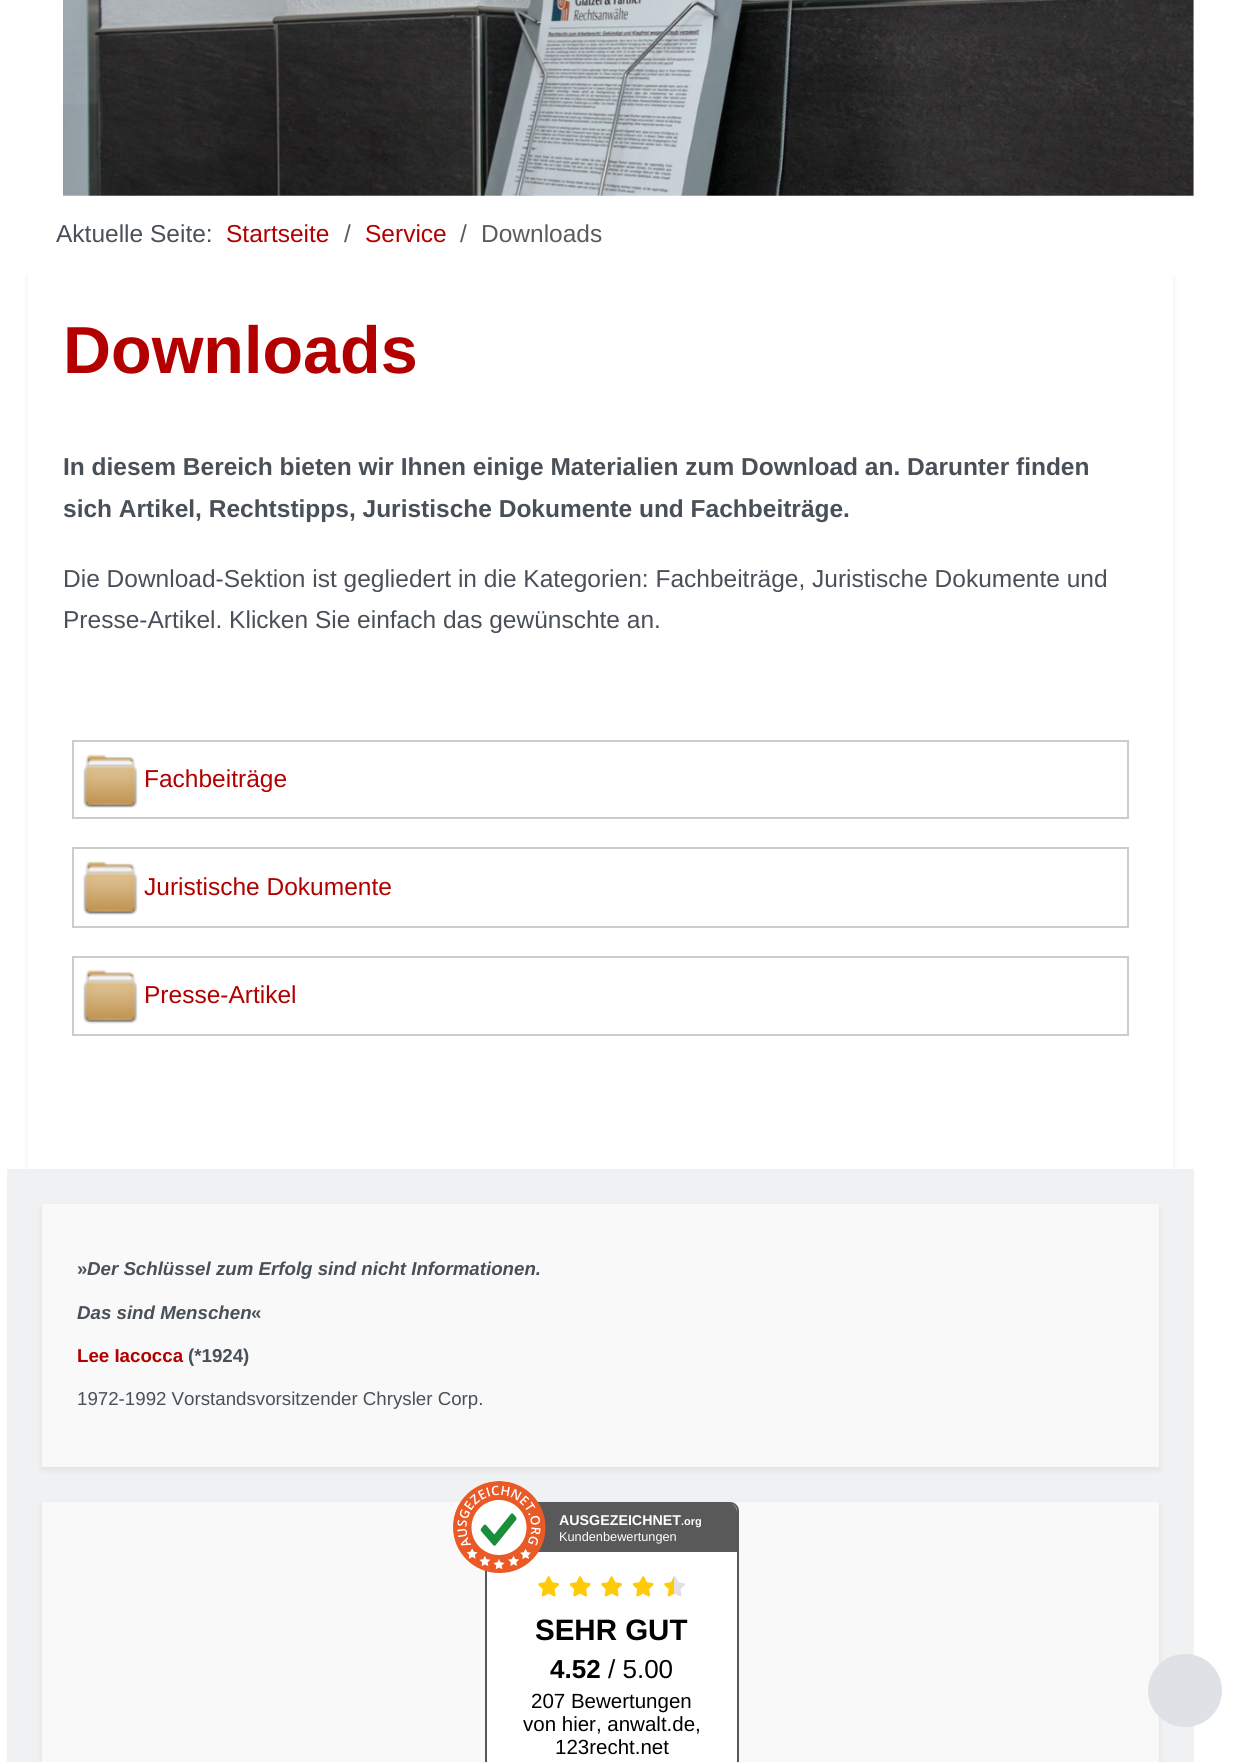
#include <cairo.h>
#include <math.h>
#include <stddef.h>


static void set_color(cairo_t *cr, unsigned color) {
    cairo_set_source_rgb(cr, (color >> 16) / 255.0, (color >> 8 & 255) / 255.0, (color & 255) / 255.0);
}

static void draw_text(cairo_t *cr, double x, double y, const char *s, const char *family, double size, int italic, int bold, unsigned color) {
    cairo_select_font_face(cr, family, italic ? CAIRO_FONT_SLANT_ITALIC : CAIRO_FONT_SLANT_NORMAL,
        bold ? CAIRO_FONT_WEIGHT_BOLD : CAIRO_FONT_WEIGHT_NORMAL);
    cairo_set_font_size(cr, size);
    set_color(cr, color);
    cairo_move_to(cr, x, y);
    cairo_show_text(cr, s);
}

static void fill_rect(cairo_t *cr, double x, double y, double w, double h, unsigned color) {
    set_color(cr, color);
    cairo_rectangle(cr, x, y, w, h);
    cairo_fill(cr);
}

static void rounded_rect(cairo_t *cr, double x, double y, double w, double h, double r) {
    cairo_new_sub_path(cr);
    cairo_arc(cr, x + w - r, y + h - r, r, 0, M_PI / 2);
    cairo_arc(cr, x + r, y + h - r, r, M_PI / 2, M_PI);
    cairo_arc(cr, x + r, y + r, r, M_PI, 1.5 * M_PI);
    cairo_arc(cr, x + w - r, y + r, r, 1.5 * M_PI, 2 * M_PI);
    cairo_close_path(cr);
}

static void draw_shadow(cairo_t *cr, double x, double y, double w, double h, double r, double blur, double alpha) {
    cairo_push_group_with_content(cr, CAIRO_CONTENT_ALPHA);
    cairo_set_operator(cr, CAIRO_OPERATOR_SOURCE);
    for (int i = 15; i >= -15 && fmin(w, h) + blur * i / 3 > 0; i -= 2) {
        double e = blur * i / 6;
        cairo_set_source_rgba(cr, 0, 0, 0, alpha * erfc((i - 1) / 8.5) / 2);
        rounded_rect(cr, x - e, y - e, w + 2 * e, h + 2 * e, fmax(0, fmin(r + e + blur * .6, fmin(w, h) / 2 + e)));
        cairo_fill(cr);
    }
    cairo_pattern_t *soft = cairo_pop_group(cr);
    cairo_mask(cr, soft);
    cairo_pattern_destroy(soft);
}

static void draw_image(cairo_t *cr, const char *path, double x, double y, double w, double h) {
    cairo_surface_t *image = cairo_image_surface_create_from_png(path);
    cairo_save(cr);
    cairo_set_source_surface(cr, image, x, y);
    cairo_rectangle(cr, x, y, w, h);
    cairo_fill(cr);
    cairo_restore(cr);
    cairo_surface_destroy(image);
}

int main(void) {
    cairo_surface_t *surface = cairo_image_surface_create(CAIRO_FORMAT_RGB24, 1256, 1762);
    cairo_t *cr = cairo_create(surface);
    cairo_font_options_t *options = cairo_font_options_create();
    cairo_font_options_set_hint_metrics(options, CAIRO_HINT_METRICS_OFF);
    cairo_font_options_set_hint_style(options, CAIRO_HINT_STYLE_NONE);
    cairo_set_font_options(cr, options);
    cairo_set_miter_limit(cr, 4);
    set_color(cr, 0xFFFFFF);
    cairo_paint(cr);
    draw_image(cr, "assets/img1.png", 63, 0, 1131, 196);
    draw_text(cr, 56, 242, "Aktuelle Seite:", "Liberation Sans", 24.5, 0, 0, 0x495057);
    draw_text(cr, 226, 242, "Startseite", "Liberation Sans", 24.5, 0, 0, 0xB20000);
    draw_text(cr, 344, 242, "/", "Liberation Sans", 24.5, 0, 0, 0x595C5F);
    draw_text(cr, 365, 242, "Service", "Liberation Sans", 24.5, 0, 0, 0xB20000);
    draw_text(cr, 460, 242, "/", "Liberation Sans", 24.5, 0, 0, 0x595C5F);
    draw_text(cr, 481, 242, "Downloads", "Liberation Sans", 24.5, 0, 0, 0x595C5F);
    set_color(cr, 0x000000);
    draw_shadow(cr, 28, 277, 1145, 896, 0, 3.5, 0.07);
    fill_rect(cr, 28, 273, 1145, 896, 0xFFFFFF);
    draw_text(cr, 63, 373, "Downloads", "Liberation Sans", 66.5, 0, 1, 0xB20000);
    draw_text(cr, 63, 475, "In diesem Bereich bieten wir Ihnen einige Materialien zum Download an. Darunter finden", "Liberation Sans", 24.5, 0, 1, 0x495057);
    draw_text(cr, 63, 517, "sich Artikel, Rechtstipps, Juristische Dokumente und Fachbeiträge.", "Liberation Sans", 24.5, 0, 1, 0x495057);
    draw_text(cr, 63, 587, "Die Download-Sektion ist gegliedert in die Kategorien: Fachbeiträge, Juristische Dokumente und", "Liberation Sans", 24.5, 0, 0, 0x495057);
    draw_text(cr, 63, 628, "Presse-Artikel. Klicken Sie einfach das gewünschte an.", "Liberation Sans", 24.5, 0, 0, 0x495057);
    draw_image(cr, "assets/img2.png", 83, 754, 55, 54);
    cairo_rectangle(cr, 73, 741, 1055, 77);
    set_color(cr, 0xCCCCCC);
    cairo_stroke(cr);
    draw_text(cr, 144, 787, "Fachbeiträge", "Liberation Sans", 24.5, 0, 0, 0xB20000);
    draw_image(cr, "assets/img3.png", 83, 861, 55, 54);
    cairo_rectangle(cr, 73, 848, 1055, 79);
    set_color(cr, 0xCCCCCC);
    cairo_stroke(cr);
    draw_text(cr, 144, 895, "Juristische Dokumente", "Liberation Sans", 24.5, 0, 0, 0xB20000);
    draw_image(cr, "assets/img4.png", 83, 969, 55, 55);
    cairo_rectangle(cr, 73, 957, 1055, 78);
    set_color(cr, 0xCCCCCC);
    cairo_stroke(cr);
    draw_text(cr, 144, 1003, "Presse-Artikel", "Liberation Sans", 24.5, 0, 0, 0xB20000);
    fill_rect(cr, 7, 1169, 1187, 593, 0xF0F1F2);
    set_color(cr, 0x000000);
    draw_shadow(cr, 42, 1208, 1117, 262, 0, 3.5, 0.07);
    fill_rect(cr, 42, 1204, 1117, 263, 0xF9F9F9);
    draw_text(cr, 77, 1275, "»", "Liberation Sans", 18.7, 0, 1, 0x495057);
    draw_text(cr, 87, 1275, "Der Schlüssel zum Erfolg sind nicht Informationen.", "Liberation Sans", 18.7, 1, 1, 0x495057);
    draw_text(cr, 77, 1319, "Das sind Menschen", "Liberation Sans", 18.7, 1, 1, 0x495057);
    draw_text(cr, 251, 1319, "«", "Liberation Sans", 18.7, 0, 1, 0x495057);
    draw_text(cr, 77, 1362, "Lee Iacocca", "Liberation Sans", 18.7, 0, 1, 0xB20000);
    draw_text(cr, 188, 1362, "(*1924)", "Liberation Sans", 18.7, 0, 1, 0x495057);
    draw_text(cr, 77, 1405, "1972-1992 Vorstandsvorsitzender Chrysler Corp.", "Liberation Sans", 18.7, 0, 0, 0x495057);
    set_color(cr, 0x000000);
    draw_shadow(cr, 42, 1505, 1117, 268, 0, 3.5, 0.07);
    fill_rect(cr, 42, 1502, 1117, 260, 0xF9F9F9);
    rounded_rect(cr, 486, 1503, 252, 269, 8);
    set_color(cr, 0x595959);
    cairo_stroke(cr);
    cairo_new_path(cr);
    cairo_move_to(cr, 496, 1503);
    cairo_line_to(cr, 728, 1503);
    cairo_curve_to(cr, 733, 1503, 737, 1507, 737, 1512);
    cairo_line_to(cr, 737, 1552);
    cairo_line_to(cr, 487, 1552);
    cairo_line_to(cr, 487, 1512);
    cairo_curve_to(cr, 487, 1507, 491, 1503, 496, 1503);
    cairo_close_path(cr);
    cairo_fill(cr);
    fill_rect(cr, 487, 1552, 250, 210, 0xFFFFFF);
    draw_image(cr, "assets/img5.png", 453, 1481, 93, 92);
    draw_text(cr, 559, 1525, "AUSGEZEICHNET", "Liberation Sans", 14.25, 0, 1, 0xFFFFFF);
    draw_text(cr, 681, 1525, ".org", "Liberation Sans", 11, 0, 1, 0xFFFFFF);
    draw_text(cr, 559, 1541, "Kundenbewertungen", "Liberation Sans", 12.75, 0, 0, 0xFFFFFF);
    draw_image(cr, "assets/img6.png", 538, 1576, 21, 21);
    draw_image(cr, "assets/img7.png", 569, 1576, 22, 21);
    draw_image(cr, "assets/img6.png", 601, 1576, 21, 21);
    draw_image(cr, "assets/img7.png", 632, 1576, 22, 21);
    draw_image(cr, "assets/img8.png", 664, 1576, 21, 21);
    draw_text(cr, 535, 1640, "SEHR GUT", "Liberation Sans", 29.5, 0, 1, 0x000000);
    draw_text(cr, 550, 1678, "4.52", "Liberation Sans", 26, 0, 1, 0x000000);
    draw_text(cr, 608, 1678, "/ 5.00", "Liberation Sans", 26, 0, 0, 0x000000);
    draw_text(cr, 531, 1708, "207 Bewertungen", "Liberation Sans", 20.5, 0, 0, 0x000000);
    draw_text(cr, 523, 1731, "von hier, anwalt.de,", "Liberation Sans", 20.5, 0, 0, 0x000000);
    draw_text(cr, 555, 1754, "123recht.net", "Liberation Sans", 20.5, 0, 0, 0x000000);
    set_color(cr, 0xDEE2E6);
    rounded_rect(cr, 1148, 1654, 74, 73, 36.5);
    cairo_fill(cr);
    cairo_surface_write_to_png(surface, "output.png");
    cairo_font_options_destroy(options);
    cairo_destroy(cr);
    cairo_surface_destroy(surface);
    return 0;
}
